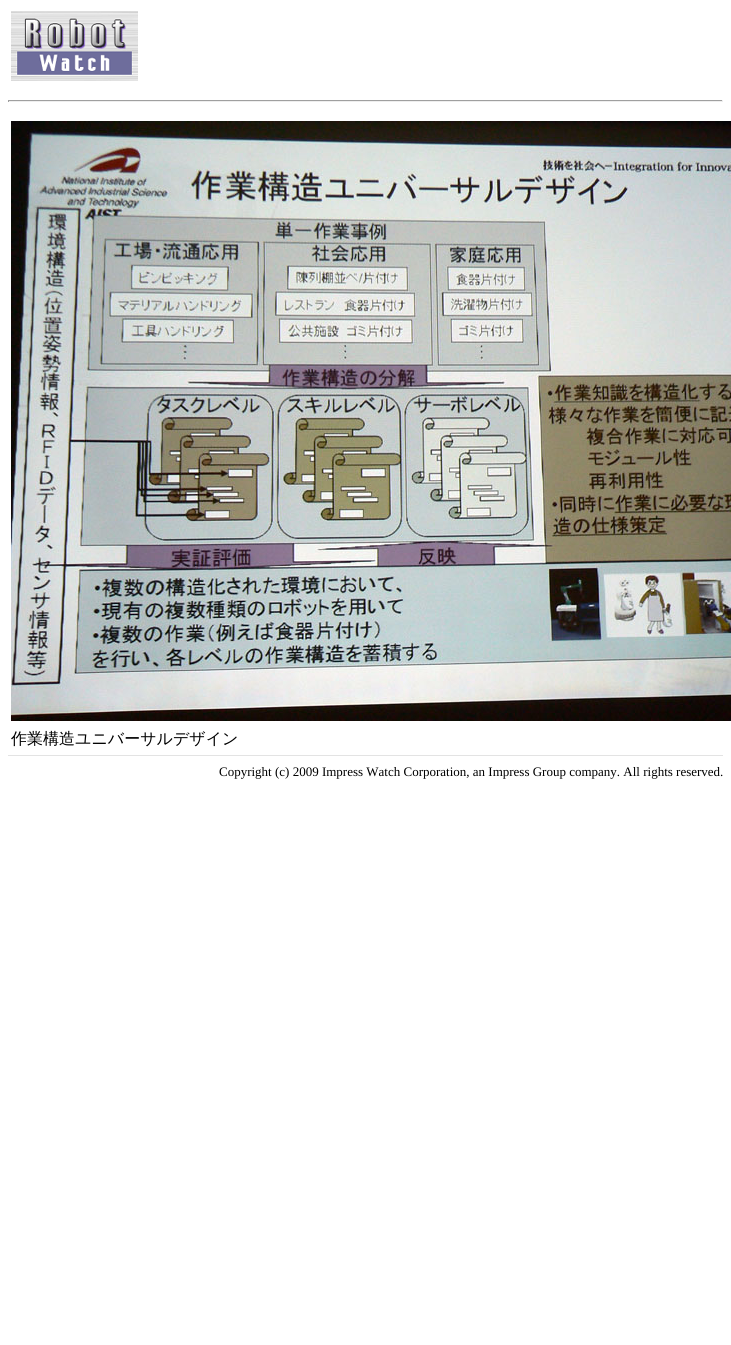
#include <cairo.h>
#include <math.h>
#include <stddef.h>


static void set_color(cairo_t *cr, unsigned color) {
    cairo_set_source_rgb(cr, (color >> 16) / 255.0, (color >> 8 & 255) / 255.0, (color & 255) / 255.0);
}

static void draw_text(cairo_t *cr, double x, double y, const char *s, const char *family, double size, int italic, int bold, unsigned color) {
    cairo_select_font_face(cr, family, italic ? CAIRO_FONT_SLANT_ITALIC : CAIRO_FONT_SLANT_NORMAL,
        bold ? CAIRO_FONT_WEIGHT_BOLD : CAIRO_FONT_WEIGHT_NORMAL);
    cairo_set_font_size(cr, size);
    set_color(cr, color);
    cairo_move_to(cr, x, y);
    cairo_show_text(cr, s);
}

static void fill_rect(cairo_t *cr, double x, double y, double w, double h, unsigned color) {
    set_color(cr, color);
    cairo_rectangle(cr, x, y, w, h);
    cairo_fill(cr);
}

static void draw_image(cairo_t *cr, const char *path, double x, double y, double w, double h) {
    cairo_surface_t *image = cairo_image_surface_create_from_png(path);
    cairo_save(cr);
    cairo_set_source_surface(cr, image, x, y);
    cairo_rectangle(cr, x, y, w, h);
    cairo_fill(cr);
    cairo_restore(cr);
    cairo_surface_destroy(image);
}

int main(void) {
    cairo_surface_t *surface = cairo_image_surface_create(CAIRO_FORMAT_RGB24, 731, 1345);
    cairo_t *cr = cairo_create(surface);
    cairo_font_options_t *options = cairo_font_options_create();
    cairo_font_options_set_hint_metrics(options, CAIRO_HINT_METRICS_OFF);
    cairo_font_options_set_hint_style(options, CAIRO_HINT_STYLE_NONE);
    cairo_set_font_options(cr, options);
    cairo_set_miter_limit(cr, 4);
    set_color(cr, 0xFFFFFF);
    cairo_paint(cr);
    draw_image(cr, "assets/img1.png", 11, 11, 127, 70);
    fill_rect(cr, 8, 100, 715, 1, 0x9F9F9F);
    fill_rect(cr, 722, 100, 1, 2, 0xEEEEEE);
    fill_rect(cr, 8, 101, 715, 1, 0xEEEEEE);
    fill_rect(cr, 8, 100, 1, 2, 0x9F9F9F);
    draw_image(cr, "assets/img2.png", 11, 121, 720, 600);
    draw_text(cr, 11, 744, "作業構造ユニバーサルデザイン", "WenQuanYi Zen Hei Medium", 16, 0, 0, 0x000000);
    fill_rect(cr, 8, 755, 715, 1, 0xE3E3E3);
    draw_text(cr, 219, 776, "Copyright (c) 2009 Impress Watch Corporation, an Impress Group company. All rights reserved.", "Liberation Serif", 13, 0, 0, 0x000000);
    cairo_surface_write_to_png(surface, "output.png");
    cairo_font_options_destroy(options);
    cairo_destroy(cr);
    cairo_surface_destroy(surface);
    return 0;
}
